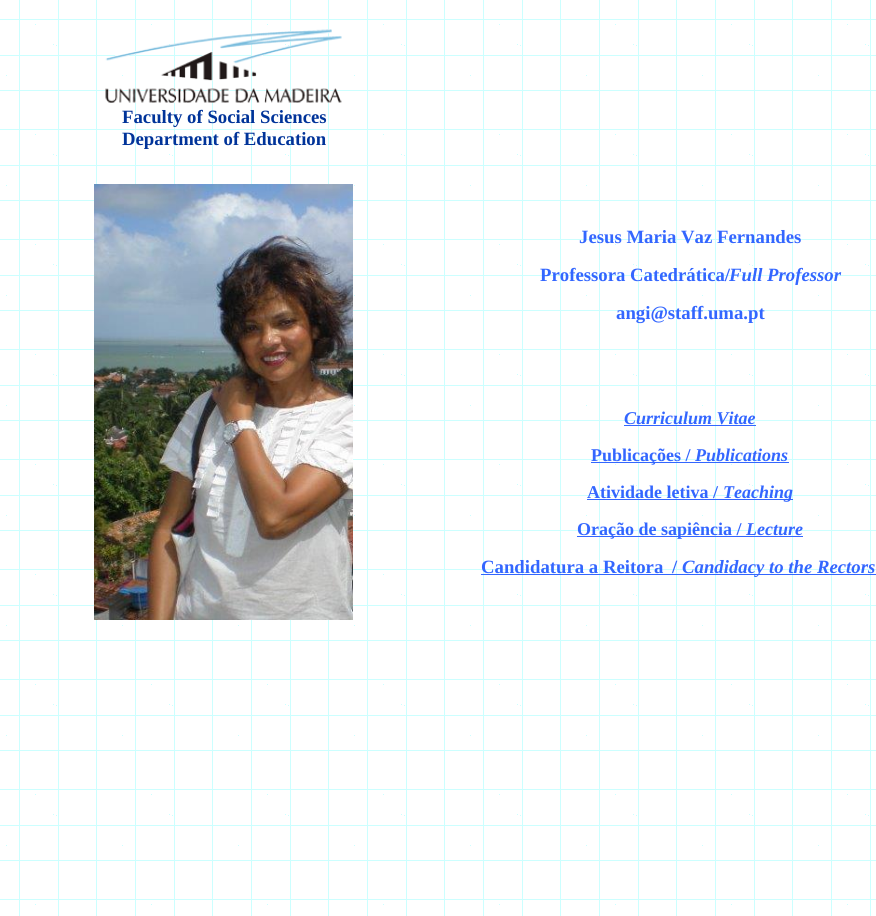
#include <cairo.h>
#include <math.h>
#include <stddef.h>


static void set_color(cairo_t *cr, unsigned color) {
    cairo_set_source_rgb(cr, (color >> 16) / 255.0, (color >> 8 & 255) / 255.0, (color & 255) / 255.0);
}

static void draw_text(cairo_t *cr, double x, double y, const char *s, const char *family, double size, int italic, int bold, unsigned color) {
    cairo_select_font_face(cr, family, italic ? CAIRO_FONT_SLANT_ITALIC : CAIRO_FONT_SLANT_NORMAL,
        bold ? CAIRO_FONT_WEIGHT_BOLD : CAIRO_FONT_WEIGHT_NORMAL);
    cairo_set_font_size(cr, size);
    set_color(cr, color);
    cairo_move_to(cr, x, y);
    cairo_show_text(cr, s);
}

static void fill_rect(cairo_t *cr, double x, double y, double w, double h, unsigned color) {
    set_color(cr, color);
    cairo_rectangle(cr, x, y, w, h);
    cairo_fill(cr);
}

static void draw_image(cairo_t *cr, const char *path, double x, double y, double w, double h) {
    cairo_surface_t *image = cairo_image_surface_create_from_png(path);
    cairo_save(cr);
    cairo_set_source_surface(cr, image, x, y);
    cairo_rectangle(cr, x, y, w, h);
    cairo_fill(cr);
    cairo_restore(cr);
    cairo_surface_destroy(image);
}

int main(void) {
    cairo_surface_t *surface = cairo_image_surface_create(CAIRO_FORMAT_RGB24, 876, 916);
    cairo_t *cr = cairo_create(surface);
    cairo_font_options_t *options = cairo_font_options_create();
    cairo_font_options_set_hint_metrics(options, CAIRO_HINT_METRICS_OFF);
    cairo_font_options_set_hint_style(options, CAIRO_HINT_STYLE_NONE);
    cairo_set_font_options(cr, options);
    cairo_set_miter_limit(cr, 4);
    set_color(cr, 0xFFFFFF);
    cairo_paint(cr);
    draw_image(cr, "assets/img1.png", 0, 0, 876, 916);
    draw_image(cr, "assets/img2.png", 105, 29, 237, 74);
    draw_text(cr, 122, 123, "Faculty of Social Sciences", "Liberation Serif", 18.75, 0, 1, 0x003399);
    draw_text(cr, 122, 145, "Department of Education", "Liberation Serif", 18.75, 0, 1, 0x003399);
    draw_image(cr, "assets/img3.png", 94, 184, 259, 436);
    draw_text(cr, 579, 243, "Jesus Maria Vaz Fernandes", "Liberation Serif", 18.75, 0, 1, 0x3366FF);
    draw_text(cr, 540, 281, "Professora Catedrática/", "Liberation Serif", 18.75, 0, 1, 0x3366FF);
    draw_text(cr, 729, 281, "Full Professor", "Liberation Serif", 18.75, 1, 1, 0x3366FF);
    draw_text(cr, 616, 319, "angi@staff.uma.pt", "Liberation Serif", 18.75, 0, 1, 0x3366FF);
    draw_text(cr, 624, 424, "Curriculum Vitae", "Liberation Serif", 18, 1, 1, 0x3366FF);
    fill_rect(cr, 624, 425, 132, 1, 0x3366FF);
    fill_rect(cr, 591, 462, 100, 1, 0x3366FF);
    draw_text(cr, 591, 461, "Publicações /", "Liberation Serif", 18, 0, 1, 0x3366FF);
    fill_rect(cr, 691, 462, 98, 1, 0x3366FF);
    draw_text(cr, 695, 461, "Publications", "Liberation Serif", 18, 1, 1, 0x3366FF);
    draw_text(cr, 587, 498, "Atividade letiva /", "Liberation Serif", 18, 0, 1, 0x3366FF);
    fill_rect(cr, 587, 499, 206, 1, 0x3366FF);
    draw_text(cr, 723, 498, "Teaching", "Liberation Serif", 18, 1, 1, 0x3366FF);
    fill_rect(cr, 577, 536, 226, 1, 0x3366FF);
    draw_text(cr, 577, 535, "Oração de sapiência /", "Liberation Serif", 18, 0, 1, 0x3366FF);
    draw_text(cr, 746, 535, "Lecture", "Liberation Serif", 18, 1, 1, 0x3366FF);
    draw_text(cr, 481, 573, "Candidatura a Reitora", "Liberation Serif", 18.75, 0, 1, 0x3366FF);
    draw_text(cr, 672, 573, "/", "Liberation Serif", 18.75, 0, 1, 0x3366FF);
    fill_rect(cr, 481, 574, 395, 1, 0x3366FF);
    draw_text(cr, 682, 573, "Candidacy to the Rectors", "Liberation Serif", 18.75, 1, 1, 0x3366FF);
    cairo_surface_write_to_png(surface, "output.png");
    cairo_font_options_destroy(options);
    cairo_destroy(cr);
    cairo_surface_destroy(surface);
    return 0;
}
